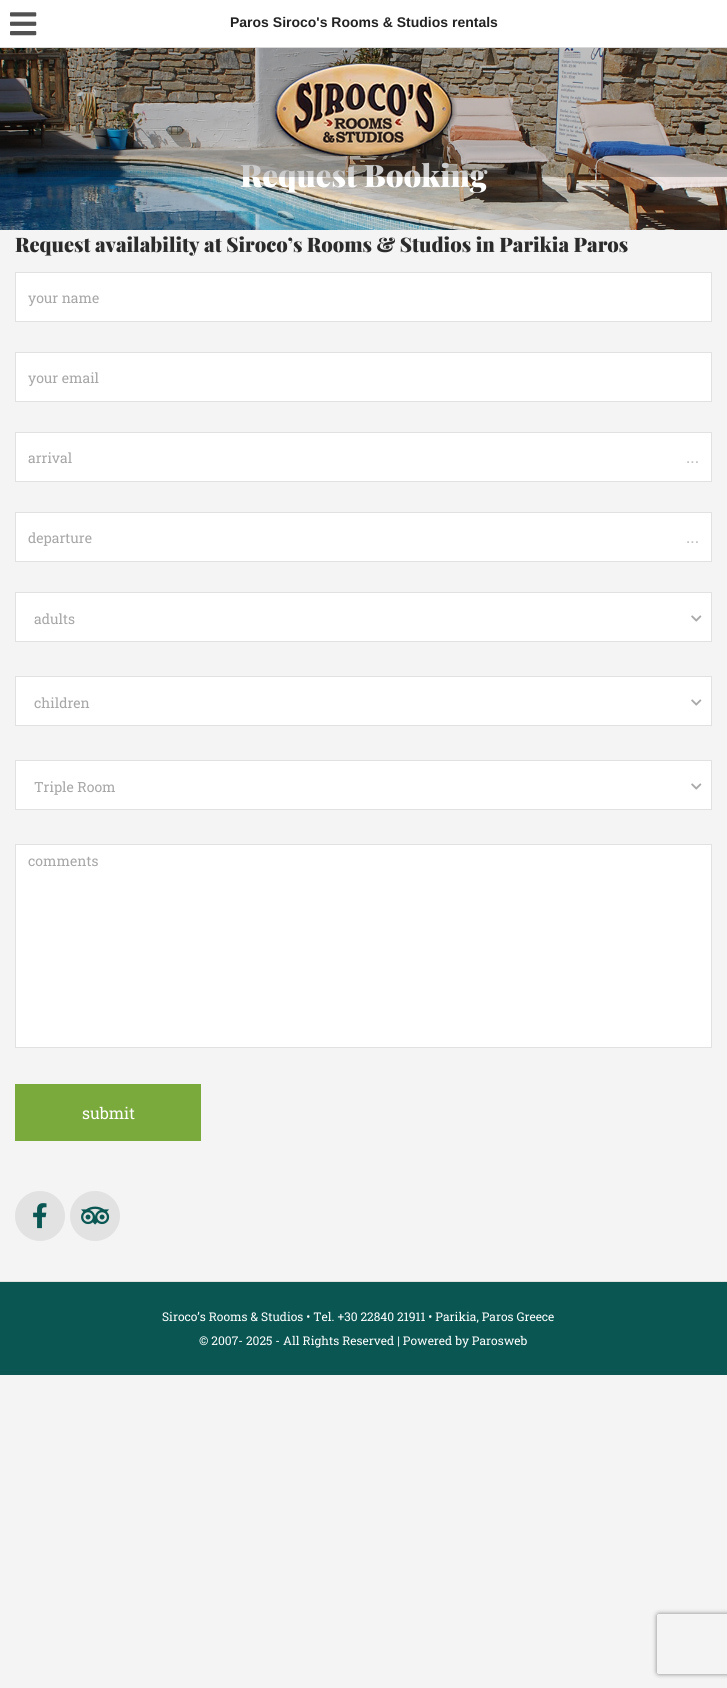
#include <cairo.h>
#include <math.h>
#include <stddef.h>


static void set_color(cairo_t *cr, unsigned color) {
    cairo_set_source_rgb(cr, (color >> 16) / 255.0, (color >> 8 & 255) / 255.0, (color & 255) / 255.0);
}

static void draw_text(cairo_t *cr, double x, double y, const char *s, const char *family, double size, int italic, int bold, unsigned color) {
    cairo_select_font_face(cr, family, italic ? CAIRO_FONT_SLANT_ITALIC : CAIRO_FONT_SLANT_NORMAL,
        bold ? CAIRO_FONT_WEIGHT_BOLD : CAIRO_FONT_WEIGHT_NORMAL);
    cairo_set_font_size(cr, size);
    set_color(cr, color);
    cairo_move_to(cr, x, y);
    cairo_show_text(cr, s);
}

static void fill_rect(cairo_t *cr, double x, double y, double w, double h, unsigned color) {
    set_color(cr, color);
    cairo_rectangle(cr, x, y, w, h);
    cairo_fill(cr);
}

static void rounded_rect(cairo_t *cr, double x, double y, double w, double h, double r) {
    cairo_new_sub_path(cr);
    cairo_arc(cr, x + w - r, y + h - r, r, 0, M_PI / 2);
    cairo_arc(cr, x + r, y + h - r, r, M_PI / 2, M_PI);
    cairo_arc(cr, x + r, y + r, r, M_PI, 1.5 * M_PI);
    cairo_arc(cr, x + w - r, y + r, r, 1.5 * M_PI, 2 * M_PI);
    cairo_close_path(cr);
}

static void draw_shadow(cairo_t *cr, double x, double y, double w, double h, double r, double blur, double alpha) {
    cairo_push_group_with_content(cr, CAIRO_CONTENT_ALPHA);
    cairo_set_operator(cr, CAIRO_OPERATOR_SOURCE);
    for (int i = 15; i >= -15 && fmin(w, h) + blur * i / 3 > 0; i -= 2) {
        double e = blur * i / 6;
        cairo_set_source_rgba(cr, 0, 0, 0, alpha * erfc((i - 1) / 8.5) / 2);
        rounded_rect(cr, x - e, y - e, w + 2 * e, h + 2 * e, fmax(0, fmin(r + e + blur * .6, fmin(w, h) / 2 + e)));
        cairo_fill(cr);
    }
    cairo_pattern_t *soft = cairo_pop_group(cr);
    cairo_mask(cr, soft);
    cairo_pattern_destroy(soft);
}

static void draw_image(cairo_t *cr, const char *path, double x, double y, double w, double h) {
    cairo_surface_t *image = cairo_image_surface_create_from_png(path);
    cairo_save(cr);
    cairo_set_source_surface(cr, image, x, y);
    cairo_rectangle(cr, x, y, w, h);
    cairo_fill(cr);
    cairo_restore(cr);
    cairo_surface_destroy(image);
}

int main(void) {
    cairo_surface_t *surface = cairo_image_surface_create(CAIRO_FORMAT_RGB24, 727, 1688);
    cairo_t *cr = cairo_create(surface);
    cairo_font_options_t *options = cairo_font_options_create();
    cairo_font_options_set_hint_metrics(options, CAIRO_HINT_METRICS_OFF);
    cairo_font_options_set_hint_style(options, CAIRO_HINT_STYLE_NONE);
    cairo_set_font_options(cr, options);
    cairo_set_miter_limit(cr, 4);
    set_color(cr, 0xF4F4F4);
    cairo_paint(cr);
    fill_rect(cr, 0, 0, 727, 47, 0xFFFFFF);
    fill_rect(cr, 0, 47, 727, 1, 0xD9D9D9);
    draw_image(cr, "assets/img1.png", 10, 12, 27, 24);
    draw_text(cr, 230, 27, "Paros Siroco's Rooms & Studios rentals", "Liberation Sans", 14, 0, 1, 0x222222);
    draw_image(cr, "assets/img3.png", 0, 48, 727, 182);
    draw_text(cr, 240, 187, "Request Booking", "Playfair Display Black", 31, 0, 0, 0xFFFFFF);
    cairo_set_source_rgba(cr, 0, 0, 0, 0.2);
    cairo_rectangle(cr, 0, 48, 727, 129);
    cairo_fill(cr);
    draw_image(cr, "assets/img2.png", 270, 63, 187, 93);
    draw_text(cr, 15, 252, "Request availability at Siroco’s Rooms & Studios in Parikia Paros", "Playfair Display Black", 20, 0, 0, 0x2B2B2B);
    set_color(cr, 0xFFFFFF);
    cairo_rectangle(cr, 15.5, 272.5, 696, 49);
    cairo_fill_preserve(cr);
    set_color(cr, 0xE1E1E1);
    cairo_set_line_width(cr, 1);
    cairo_stroke(cr);
    draw_text(cr, 28, 303, "your name", "Roboto Slab", 14, 0, 0, 0xA7A7A7);
    set_color(cr, 0xFFFFFF);
    cairo_rectangle(cr, 15.5, 352.5, 696, 49);
    cairo_fill_preserve(cr);
    set_color(cr, 0xE1E1E1);
    cairo_stroke(cr);
    draw_text(cr, 28, 383, "your email", "Roboto Slab", 14, 0, 0, 0xA7A7A7);
    set_color(cr, 0xFFFFFF);
    cairo_rectangle(cr, 15.5, 432.5, 696, 49);
    cairo_fill_preserve(cr);
    set_color(cr, 0xE1E1E1);
    cairo_stroke(cr);
    draw_text(cr, 28, 463, "arrival", "Roboto Slab", 14, 0, 0, 0xA7A7A7);
    draw_text(cr, 686, 463, "...", "Roboto Slab", 18, 0, 0, 0xC2C2C2);
    set_color(cr, 0xFFFFFF);
    cairo_rectangle(cr, 15.5, 512.5, 696, 49);
    cairo_fill_preserve(cr);
    set_color(cr, 0xE1E1E1);
    cairo_stroke(cr);
    draw_text(cr, 28, 543, "departure", "Roboto Slab", 14, 0, 0, 0xA7A7A7);
    draw_text(cr, 686, 543, "...", "Roboto Slab", 18, 0, 0, 0xC2C2C2);
    set_color(cr, 0xFFFFFF);
    cairo_rectangle(cr, 15.5, 592.5, 696, 49);
    cairo_fill_preserve(cr);
    set_color(cr, 0xE1E1E1);
    cairo_stroke(cr);
    draw_text(cr, 34, 624, "adults", "Roboto Slab", 14, 0, 0, 0xA7A7A7);
    draw_image(cr, "assets/img4.png", 691, 615, 11, 7);
    set_color(cr, 0xFFFFFF);
    cairo_rectangle(cr, 15.5, 676.5, 696, 49);
    cairo_fill_preserve(cr);
    set_color(cr, 0xE1E1E1);
    cairo_stroke(cr);
    draw_text(cr, 34, 708, "children", "Roboto Slab", 14, 0, 0, 0xA7A7A7);
    draw_image(cr, "assets/img4.png", 691, 699, 11, 7);
    set_color(cr, 0xFFFFFF);
    cairo_rectangle(cr, 15.5, 760.5, 696, 49);
    cairo_fill_preserve(cr);
    set_color(cr, 0xE1E1E1);
    cairo_stroke(cr);
    draw_text(cr, 34, 792, "Triple Room", "Roboto Slab", 14, 0, 0, 0xA7A7A7);
    draw_image(cr, "assets/img4.png", 691, 783, 11, 7);
    set_color(cr, 0xFFFFFF);
    cairo_rectangle(cr, 15.5, 844.5, 696, 203);
    cairo_fill_preserve(cr);
    set_color(cr, 0xE1E1E1);
    cairo_stroke(cr);
    draw_text(cr, 28, 866, "comments", "Roboto Slab", 14, 0, 0, 0xA7A7A7);
    fill_rect(cr, 15, 1084, 186, 57, 0x7AA93C);
    draw_text(cr, 82, 1119, "submit", "Roboto Slab", 16, 0, 0, 0xFFFFFF);
    set_color(cr, 0xE2E2E2);
    cairo_new_path(cr);
    cairo_arc(cr, 40, 1216, 25, 0, 2 * M_PI);
    cairo_fill(cr);
    draw_image(cr, "assets/img5.png", 33, 1203, 14, 26);
    cairo_arc(cr, 95, 1216, 25, 0, 2 * M_PI);
    cairo_fill(cr);
    draw_image(cr, "assets/img6.png", 81, 1206, 29, 19);
    fill_rect(cr, 0, 1281, 727, 1, 0xE1E1E1);
    fill_rect(cr, 0, 1282, 727, 93, 0x095653);
    draw_text(cr, 162, 1321, "Siroco’s Rooms & Studios • Tel. +30 22840 21911 • Parikia, Paros Greece", "Roboto Slab", 12, 0, 0, 0xFFFFFF);
    draw_text(cr, 199, 1345, "© 2007- 2025 - All Rights Reserved | Powered by Parosweb", "Roboto Slab", 12, 0, 0, 0xFFFFFF);
    cairo_save(cr);
    cairo_set_fill_rule(cr, CAIRO_FILL_RULE_EVEN_ODD);
    cairo_new_path(cr);
    cairo_move_to(cr, 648, 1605);
    cairo_line_to(cr, 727, 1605);
    cairo_line_to(cr, 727, 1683);
    cairo_line_to(cr, 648, 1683);
    cairo_close_path(cr);
    cairo_move_to(cr, 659, 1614);
    cairo_line_to(cr, 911, 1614);
    cairo_curve_to(cr, 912, 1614, 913, 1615, 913, 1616);
    cairo_line_to(cr, 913, 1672);
    cairo_curve_to(cr, 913, 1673, 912, 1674, 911, 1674);
    cairo_line_to(cr, 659, 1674);
    cairo_curve_to(cr, 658, 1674, 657, 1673, 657, 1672);
    cairo_line_to(cr, 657, 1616);
    cairo_curve_to(cr, 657, 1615, 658, 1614, 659, 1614);
    cairo_close_path(cr);
    cairo_clip(cr);
    set_color(cr, 0x808080);
    draw_shadow(cr, 657, 1614, 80, 60, 2, 2.5, 1);
    cairo_restore(cr);
    cairo_surface_write_to_png(surface, "output.png");
    cairo_font_options_destroy(options);
    cairo_destroy(cr);
    cairo_surface_destroy(surface);
    return 0;
}
